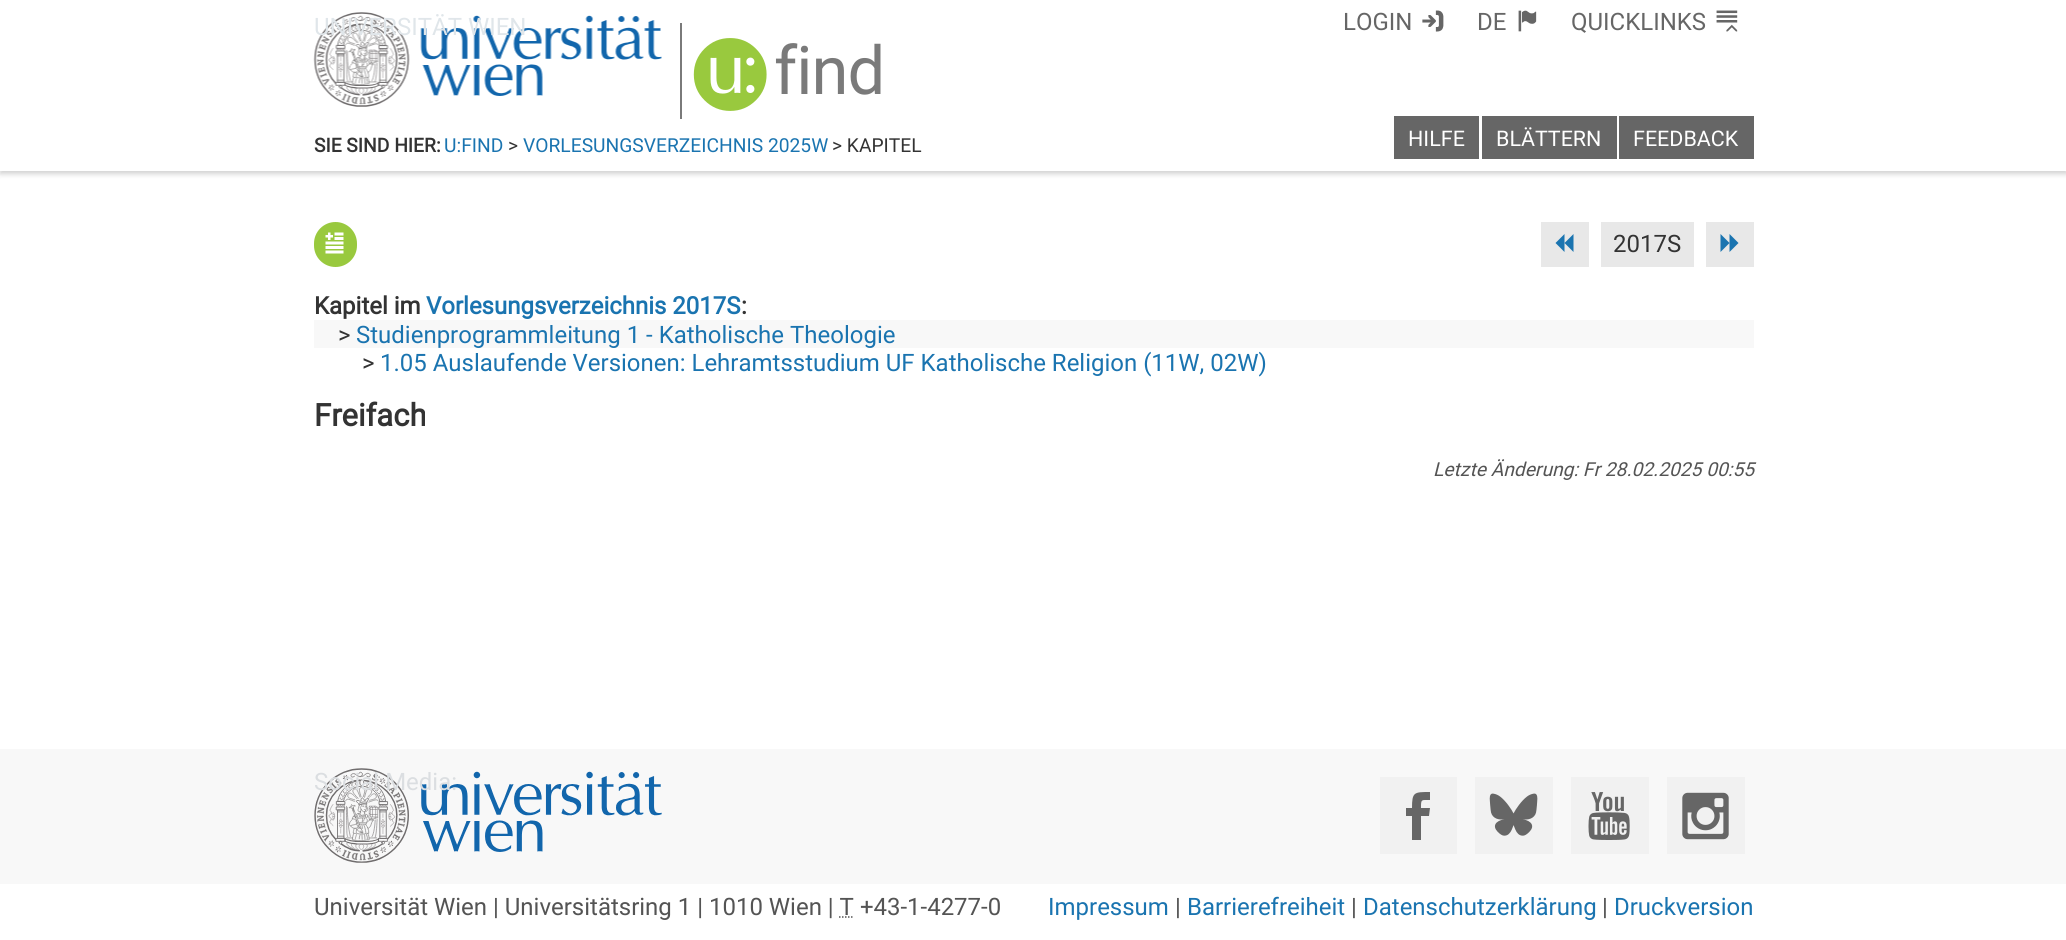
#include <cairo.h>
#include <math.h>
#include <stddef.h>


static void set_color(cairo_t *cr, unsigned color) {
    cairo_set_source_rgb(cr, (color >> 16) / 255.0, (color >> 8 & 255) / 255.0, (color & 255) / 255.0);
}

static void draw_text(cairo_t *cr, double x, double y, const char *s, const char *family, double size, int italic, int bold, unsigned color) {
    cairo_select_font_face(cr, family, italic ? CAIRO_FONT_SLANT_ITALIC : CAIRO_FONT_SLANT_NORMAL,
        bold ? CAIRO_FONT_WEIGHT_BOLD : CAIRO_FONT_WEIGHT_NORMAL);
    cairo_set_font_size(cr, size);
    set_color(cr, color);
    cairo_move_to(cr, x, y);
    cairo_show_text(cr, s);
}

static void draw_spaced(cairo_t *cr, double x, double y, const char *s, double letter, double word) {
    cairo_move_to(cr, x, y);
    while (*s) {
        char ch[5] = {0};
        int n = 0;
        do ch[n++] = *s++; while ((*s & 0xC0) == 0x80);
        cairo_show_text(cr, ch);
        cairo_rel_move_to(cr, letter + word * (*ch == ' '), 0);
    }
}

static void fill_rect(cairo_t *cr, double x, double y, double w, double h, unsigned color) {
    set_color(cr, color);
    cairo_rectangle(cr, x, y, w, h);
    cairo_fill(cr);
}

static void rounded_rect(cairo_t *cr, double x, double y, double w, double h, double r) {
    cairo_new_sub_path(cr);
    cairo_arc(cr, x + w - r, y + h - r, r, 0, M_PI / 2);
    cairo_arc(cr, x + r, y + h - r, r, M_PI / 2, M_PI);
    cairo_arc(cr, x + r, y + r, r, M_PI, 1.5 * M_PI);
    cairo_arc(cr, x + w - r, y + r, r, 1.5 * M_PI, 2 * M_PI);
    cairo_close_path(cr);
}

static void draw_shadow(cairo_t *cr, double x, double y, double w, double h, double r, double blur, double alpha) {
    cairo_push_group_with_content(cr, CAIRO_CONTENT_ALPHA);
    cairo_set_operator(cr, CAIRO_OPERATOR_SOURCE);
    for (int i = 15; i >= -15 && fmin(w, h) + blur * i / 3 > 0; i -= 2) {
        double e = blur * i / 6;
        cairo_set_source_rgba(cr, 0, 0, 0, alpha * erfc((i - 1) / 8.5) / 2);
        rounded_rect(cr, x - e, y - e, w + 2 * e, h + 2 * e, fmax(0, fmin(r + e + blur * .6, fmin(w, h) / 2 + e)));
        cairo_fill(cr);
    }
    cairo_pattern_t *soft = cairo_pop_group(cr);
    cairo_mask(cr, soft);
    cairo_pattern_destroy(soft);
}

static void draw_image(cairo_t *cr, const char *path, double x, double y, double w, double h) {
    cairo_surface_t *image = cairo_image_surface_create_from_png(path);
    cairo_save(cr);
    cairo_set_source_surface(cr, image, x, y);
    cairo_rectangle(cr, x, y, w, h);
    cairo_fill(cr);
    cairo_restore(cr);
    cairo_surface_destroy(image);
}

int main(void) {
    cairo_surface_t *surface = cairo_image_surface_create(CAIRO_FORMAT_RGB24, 2066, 940);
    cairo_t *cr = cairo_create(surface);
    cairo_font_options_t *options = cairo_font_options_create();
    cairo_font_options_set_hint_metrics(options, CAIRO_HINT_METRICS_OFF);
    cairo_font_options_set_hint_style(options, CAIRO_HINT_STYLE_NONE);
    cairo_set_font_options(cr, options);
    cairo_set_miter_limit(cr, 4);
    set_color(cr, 0xFFFFFF);
    cairo_paint(cr);
    set_color(cr, 0x000000);
    draw_shadow(cr, 0, 3, 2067, 171, 0, 2.5, 0.18);
    fill_rect(cr, 0, 0, 2066, 171, 0xFFFFFF);
    draw_image(cr, "assets/img1.png", 313, 12, 349, 95);
    draw_text(cr, 314, 35, "UNIVERSITÄT WIEN", "Roboto", 24, 0, 0, 0xE0E6EA);
    fill_rect(cr, 680, 23, 2, 96, 0x7A7A7A);
    draw_image(cr, "assets/img2.png", 693, 38, 74, 73);
    cairo_set_font_size(cr, 67);
    draw_spaced(cr, 774, 94, "find", -1, 0);
    draw_text(cr, 1343, 30, "LOGIN", "Roboto", 24, 0, 0, 0x666666);
    draw_image(cr, "assets/img3.png", 1422, 10, 22, 22);
    draw_text(cr, 1477, 30, "DE", "Roboto", 24, 0, 0, 0x666666);
    draw_image(cr, "assets/img4.png", 1518, 10, 19, 22);
    draw_text(cr, 1571, 30, "QUICKLINKS", "Roboto", 24, 0, 0, 0x666666);
    draw_image(cr, "assets/img5.png", 1716, 10, 22, 22);
    fill_rect(cr, 1394, 116, 85, 43, 0x666666);
    draw_text(cr, 1408, 146, "HILFE", "Roboto", 21.5, 0, 0, 0xFFFFFF);
    fill_rect(cr, 1482, 116, 135, 43, 0x666666);
    draw_text(cr, 1496, 146, "BLÄTTERN", "Roboto", 21.5, 0, 0, 0xFFFFFF);
    fill_rect(cr, 1619, 116, 135, 43, 0x666666);
    draw_text(cr, 1633, 146, "FEEDBACK", "Roboto", 21.5, 0, 0, 0xFFFFFF);
    draw_text(cr, 314, 152, "SIE SIND HIER:", "Roboto", 19.25, 0, 1, 0x333333);
    draw_text(cr, 444, 152, "U:FIND", "Roboto", 19.25, 0, 0, 0x1A74B0);
    draw_text(cr, 508, 152, ">", "Roboto", 19.25, 0, 0, 0x333333);
    draw_text(cr, 523, 152, "VORLESUNGSVERZEICHNIS 2025W", "Roboto", 19.25, 0, 0, 0x1A74B0);
    draw_text(cr, 832, 152, "> KAPITEL", "Roboto", 19.25, 0, 0, 0x333333);
    set_color(cr, 0x99C93E);
    rounded_rect(cr, 314, 222, 43, 45, 21.5);
    cairo_fill(cr);
    draw_image(cr, "assets/img6.png", 325, 232, 19, 22);
    fill_rect(cr, 1541, 222, 48, 45, 0xE8E8E8);
    set_color(cr, 0x1A74B0);
    cairo_new_path(cr);
    cairo_move_to(cr, 1564.5, 234);
    cairo_line_to(cr, 1564.5, 252);
    cairo_line_to(cr, 1555.5, 243);
    cairo_close_path(cr);
    cairo_move_to(cr, 1573.5, 234);
    cairo_line_to(cr, 1573.5, 252);
    cairo_line_to(cr, 1564.5, 243);
    cairo_close_path(cr);
    cairo_fill(cr);
    fill_rect(cr, 1601, 222, 93, 45, 0xE8E8E8);
    draw_text(cr, 1613, 252, "2017S", "Roboto", 24, 0, 0, 0x333333);
    fill_rect(cr, 1706, 222, 48, 45, 0xE8E8E8);
    set_color(cr, 0x1A74B0);
    cairo_new_path(cr);
    cairo_move_to(cr, 1720.5, 234);
    cairo_line_to(cr, 1729.5, 243);
    cairo_line_to(cr, 1720.5, 252);
    cairo_close_path(cr);
    cairo_move_to(cr, 1729.5, 234);
    cairo_line_to(cr, 1738.5, 243);
    cairo_line_to(cr, 1729.5, 252);
    cairo_close_path(cr);
    cairo_fill(cr);
    draw_text(cr, 314, 314, "Kapitel im", "Roboto", 24, 0, 1, 0x333333);
    draw_text(cr, 426, 314, "Vorlesungsverzeichnis 2017S", "Roboto", 24, 0, 1, 0x1A74B0);
    draw_text(cr, 741, 314, ":", "Roboto", 24, 0, 1, 0x333333);
    fill_rect(cr, 314, 320, 1440, 28, 0xF8F8F8);
    draw_text(cr, 338, 343, ">", "Roboto", 24, 0, 0, 0x333333);
    draw_text(cr, 356, 343, "Studienprogrammleitung 1 - Katholische Theologie", "Roboto", 24, 0, 0, 0x1A74B0);
    draw_text(cr, 362, 371, ">", "Roboto", 24, 0, 0, 0x333333);
    draw_text(cr, 380, 371, "1.05 Auslaufende Versionen: Lehramtsstudium UF Katholische Religion (11W, 02W)", "Roboto", 24, 0, 0, 0x1A74B0);
    draw_text(cr, 314, 426, "Freifach", "Roboto", 31, 0, 1, 0x333333);
    draw_text(cr, 1433, 476, "Letzte Änderung: Fr 28.02.2025 00:55", "Roboto", 19.25, 1, 0, 0x545454);
    fill_rect(cr, 0, 749, 2066, 135, 0xF8F8F8);
    draw_image(cr, "assets/img7.png", 314, 768, 348, 95);
    draw_text(cr, 314, 790, "Social Media:", "Roboto", 24, 0, 0, 0xDBDEE1);
    fill_rect(cr, 1380, 777, 77, 77, 0xF1F1F1);
    set_color(cr, 0x666666);
    cairo_new_path(cr);
    cairo_move_to(cr, 1421, 808);
    cairo_curve_to(cr, 1421, 799, 1421, 800, 1430, 800);
    cairo_line_to(cr, 1430, 792);
    cairo_curve_to(cr, 1414, 792, 1412, 792, 1412, 808);
    cairo_line_to(cr, 1406, 808);
    cairo_line_to(cr, 1406, 816);
    cairo_line_to(cr, 1412, 816);
    cairo_line_to(cr, 1412, 840);
    cairo_line_to(cr, 1421, 840);
    cairo_line_to(cr, 1421, 816);
    cairo_line_to(cr, 1429, 816);
    cairo_line_to(cr, 1430, 808);
    cairo_close_path(cr);
    cairo_fill(cr);
    fill_rect(cr, 1475, 777, 78, 77, 0xF1F1F1);
    draw_image(cr, "assets/img8.png", 1489, 793, 49, 43);
    fill_rect(cr, 1571, 777, 78, 77, 0xF1F1F1);
    draw_image(cr, "assets/img9.png", 1588, 792, 42, 48);
    fill_rect(cr, 1667, 777, 78, 77, 0xF1F1F1);
    draw_image(cr, "assets/img10.png", 1682, 792, 47, 48);
    draw_text(cr, 314, 915, "Universität Wien | Universitätsring 1 | 1010 Wien | T +43-1-4277-0", "Roboto", 24, 0, 0, 0x545454);
    cairo_new_path(cr);
    cairo_move_to(cr, 839, 917);
    cairo_line_to(cr, 853.5, 917);
    cairo_set_line_width(cr, 1.5);
    cairo_set_dash(cr, (double[]){1.5, 1.5}, 2, 0);
    cairo_stroke(cr);
    draw_text(cr, 1048, 915, "Impressum", "Roboto", 24, 0, 0, 0x1A74B0);
    draw_text(cr, 1175, 915, "|", "Roboto", 24, 0, 0, 0x545454);
    draw_text(cr, 1187, 915, "Barrierefreiheit", "Roboto", 24, 0, 0, 0x1A74B0);
    draw_text(cr, 1351, 915, "|", "Roboto", 24, 0, 0, 0x545454);
    draw_text(cr, 1363, 915, "Datenschutzerklärung", "Roboto", 24, 0, 0, 0x1A74B0);
    draw_text(cr, 1602, 915, "|", "Roboto", 24, 0, 0, 0x545454);
    draw_text(cr, 1614, 915, "Druckversion", "Roboto", 24, 0, 0, 0x1A74B0);
    cairo_surface_write_to_png(surface, "output.png");
    cairo_font_options_destroy(options);
    cairo_destroy(cr);
    cairo_surface_destroy(surface);
    return 0;
}
